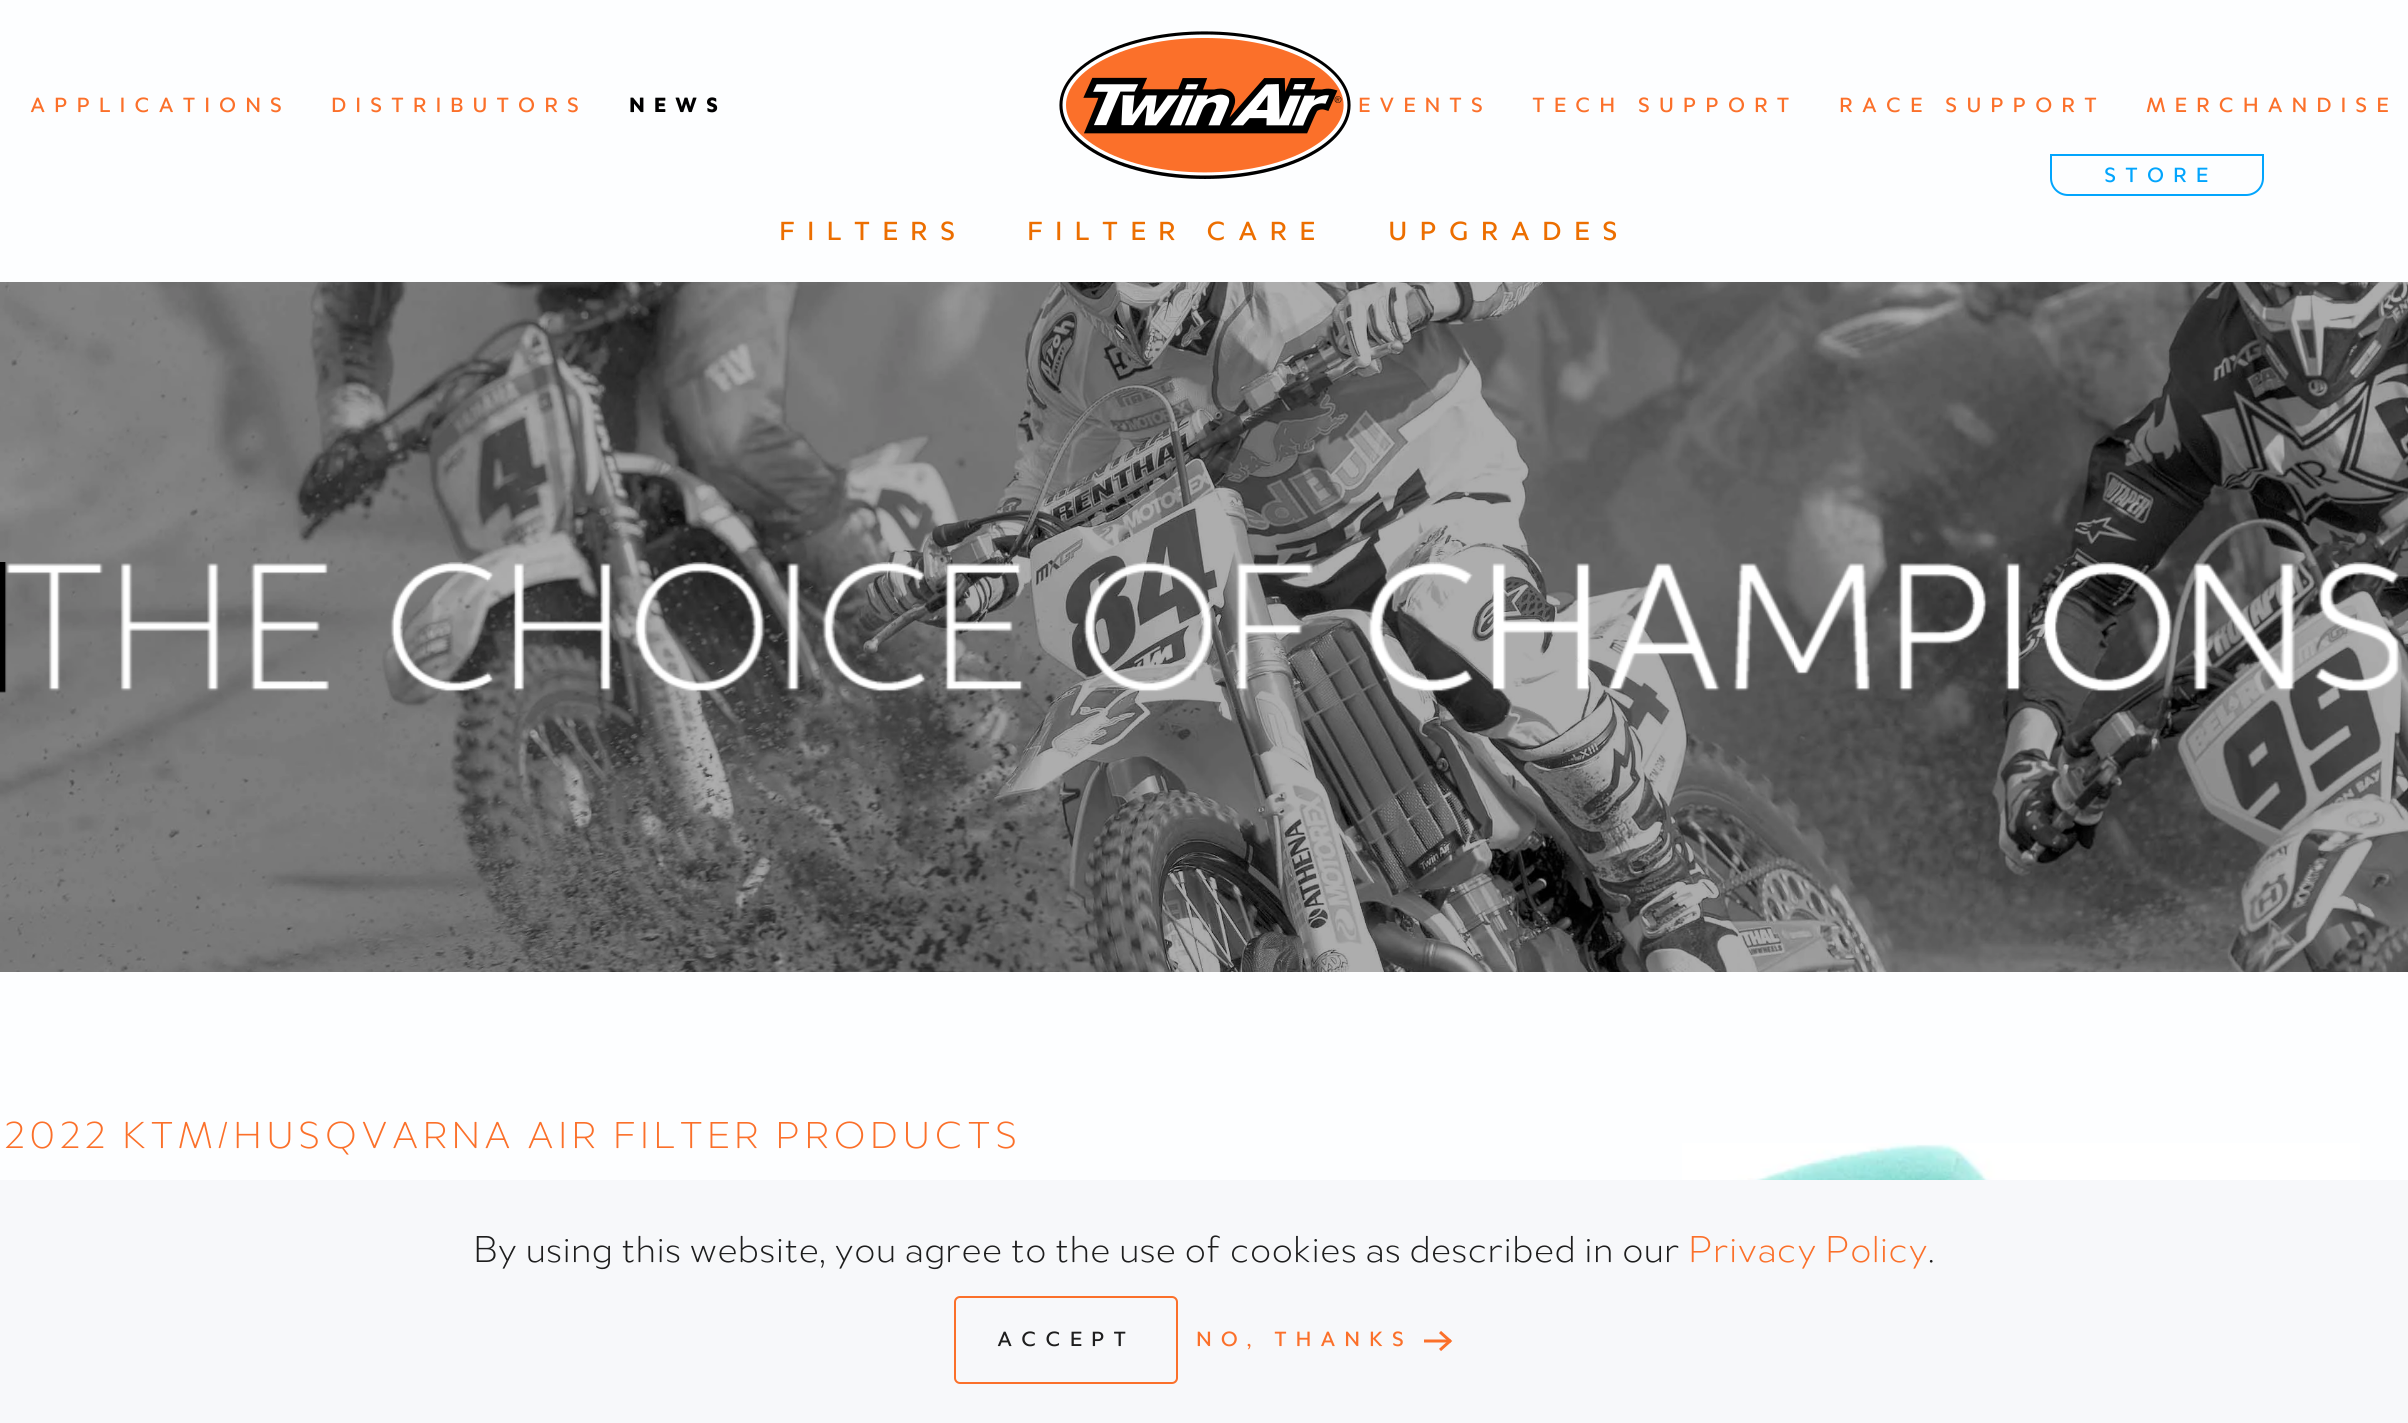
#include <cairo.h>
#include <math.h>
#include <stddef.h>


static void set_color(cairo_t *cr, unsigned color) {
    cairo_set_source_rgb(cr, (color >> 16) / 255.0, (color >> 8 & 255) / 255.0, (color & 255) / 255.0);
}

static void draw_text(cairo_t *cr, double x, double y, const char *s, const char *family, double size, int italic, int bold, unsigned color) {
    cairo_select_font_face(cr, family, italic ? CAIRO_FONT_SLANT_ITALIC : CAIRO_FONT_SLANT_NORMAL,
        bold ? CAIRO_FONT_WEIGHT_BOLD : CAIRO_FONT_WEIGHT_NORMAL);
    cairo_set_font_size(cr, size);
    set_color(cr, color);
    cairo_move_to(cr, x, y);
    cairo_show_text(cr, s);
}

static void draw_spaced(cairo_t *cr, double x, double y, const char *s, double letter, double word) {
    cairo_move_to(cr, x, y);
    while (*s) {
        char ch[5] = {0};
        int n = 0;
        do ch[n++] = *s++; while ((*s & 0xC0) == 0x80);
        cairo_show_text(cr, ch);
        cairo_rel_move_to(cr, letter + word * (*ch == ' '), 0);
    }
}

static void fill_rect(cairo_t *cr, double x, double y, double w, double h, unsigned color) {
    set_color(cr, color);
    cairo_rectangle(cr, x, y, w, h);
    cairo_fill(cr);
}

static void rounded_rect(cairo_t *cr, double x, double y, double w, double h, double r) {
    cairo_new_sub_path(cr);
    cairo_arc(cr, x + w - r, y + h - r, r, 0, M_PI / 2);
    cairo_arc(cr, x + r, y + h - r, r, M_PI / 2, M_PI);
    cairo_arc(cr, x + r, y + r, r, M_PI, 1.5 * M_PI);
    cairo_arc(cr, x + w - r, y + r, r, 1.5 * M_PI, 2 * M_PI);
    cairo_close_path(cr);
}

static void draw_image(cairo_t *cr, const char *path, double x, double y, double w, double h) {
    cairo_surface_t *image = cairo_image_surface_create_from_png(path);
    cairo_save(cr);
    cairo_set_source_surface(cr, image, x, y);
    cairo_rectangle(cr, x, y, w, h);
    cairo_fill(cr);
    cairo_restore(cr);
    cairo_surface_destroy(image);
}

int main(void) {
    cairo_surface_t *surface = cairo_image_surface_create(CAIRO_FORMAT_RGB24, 2408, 1423);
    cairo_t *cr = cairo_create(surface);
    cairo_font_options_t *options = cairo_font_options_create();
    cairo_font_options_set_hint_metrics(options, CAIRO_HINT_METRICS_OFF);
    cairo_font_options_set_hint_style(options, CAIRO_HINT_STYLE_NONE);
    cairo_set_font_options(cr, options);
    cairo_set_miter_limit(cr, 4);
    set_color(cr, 0xFDFEFF);
    cairo_paint(cr);
    draw_image(cr, "assets/img1.png", 1059, 31, 292, 148);
    cairo_select_font_face(cr, "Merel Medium", CAIRO_FONT_SLANT_NORMAL, CAIRO_FONT_WEIGHT_NORMAL);
    cairo_set_font_size(cr, 22);
    set_color(cr, 0xFB702A);
    draw_spaced(cr, 30, 112, "APPLICATIONS", 8.75, 0);
    draw_spaced(cr, 331, 112, "DISTRIBUTORS", 8.75, 0);
    cairo_select_font_face(cr, "Merel Black", CAIRO_FONT_SLANT_NORMAL, CAIRO_FONT_WEIGHT_NORMAL);
    set_color(cr, 0x000000);
    draw_spaced(cr, 629, 112, "NEWS", 8.75, 0);
    cairo_select_font_face(cr, "Merel Medium", CAIRO_FONT_SLANT_NORMAL, CAIRO_FONT_WEIGHT_NORMAL);
    set_color(cr, 0xFB702A);
    draw_spaced(cr, 1358, 112, "EVENTS", 8.75, 0);
    draw_spaced(cr, 1532, 112, "TECH SUPPORT", 8.75, 0);
    draw_spaced(cr, 1839, 112, "RACE SUPPORT", 8.75, 0);
    draw_spaced(cr, 2146, 112, "MERCHANDISE", 8.75, 0);
    cairo_set_font_size(cr, 28);
    set_color(cr, 0xEC6E00);
    draw_spaced(cr, 779, 240, "FILTERS", 12, 0);
    draw_spaced(cr, 1027, 240, "FILTER CARE", 12, 0);
    draw_spaced(cr, 1388, 240, "UPGRADES", 12, 0);
    draw_image(cr, "assets/img2.png", 0, 282, 2408, 690);
    draw_image(cr, "assets/img3.png", 0, 562, 2399, 131);
    cairo_select_font_face(cr, "Merel Light", CAIRO_FONT_SLANT_NORMAL, CAIRO_FONT_WEIGHT_NORMAL);
    cairo_set_font_size(cr, 40);
    set_color(cr, 0xFB702A);
    draw_spaced(cr, 4, 1148, "2022 KTM/HUSQVARNA AIR FILTER PRODUCTS", 4, 0);
    draw_image(cr, "assets/img4.png", 1682, 1143, 678, 37);
    cairo_new_path(cr);
    cairo_move_to(cr, 2051, 155);
    cairo_line_to(cr, 2263, 155);
    cairo_line_to(cr, 2263, 178);
    cairo_curve_to(cr, 2263, 187.5, 2255.5, 195, 2246, 195);
    cairo_line_to(cr, 2068, 195);
    cairo_curve_to(cr, 2058.5, 195, 2051, 187.5, 2051, 178);
    cairo_close_path(cr);
    set_color(cr, 0x02A5FD);
    cairo_stroke(cr);
    cairo_select_font_face(cr, "Merel Medium", CAIRO_FONT_SLANT_NORMAL, CAIRO_FONT_WEIGHT_NORMAL);
    cairo_set_font_size(cr, 22);
    draw_spaced(cr, 2104, 182, "STORE", 8.75, 0);
    fill_rect(cr, 0, 1180, 2408, 243, 0xF7F8FA);
    draw_text(cr, 473, 1262, "By using this website, you agree to the use of cookies as described in our", "Merel Light", 40, 0, 0, 0x1E1E1E);
    draw_text(cr, 1688, 1262, "Privacy Policy", "Merel Light", 40, 0, 0, 0xFB702A);
    draw_text(cr, 1928, 1262, ".", "Merel Light", 40, 0, 0, 0x1E1E1E);
    rounded_rect(cr, 955, 1297, 222, 86, 5);
    set_color(cr, 0xFB702A);
    cairo_stroke(cr);
    cairo_select_font_face(cr, "Merel Medium", CAIRO_FONT_SLANT_NORMAL, CAIRO_FONT_WEIGHT_NORMAL);
    cairo_set_font_size(cr, 22);
    set_color(cr, 0x1E1E1E);
    draw_spaced(cr, 997, 1346, "ACCEPT", 8.75, 0);
    set_color(cr, 0xFB702A);
    draw_spaced(cr, 1196, 1346, "NO, THANKS", 8.75, 0);
    cairo_new_path(cr);
    cairo_move_to(cr, 1440, 1332);
    cairo_line_to(cr, 1450, 1341);
    cairo_line_to(cr, 1440, 1350);
    cairo_set_line_width(cr, 3);
    cairo_stroke(cr);
    cairo_save(cr);
    cairo_rectangle(cr, 1424, 1330, 30, 22);
    cairo_clip(cr);
    cairo_new_path(cr);
    cairo_move_to(cr, 1414, 1341);
    cairo_line_to(cr, 1451, 1341);
    cairo_stroke(cr);
    cairo_restore(cr);
    cairo_surface_write_to_png(surface, "output.png");
    cairo_font_options_destroy(options);
    cairo_destroy(cr);
    cairo_surface_destroy(surface);
    return 0;
}
